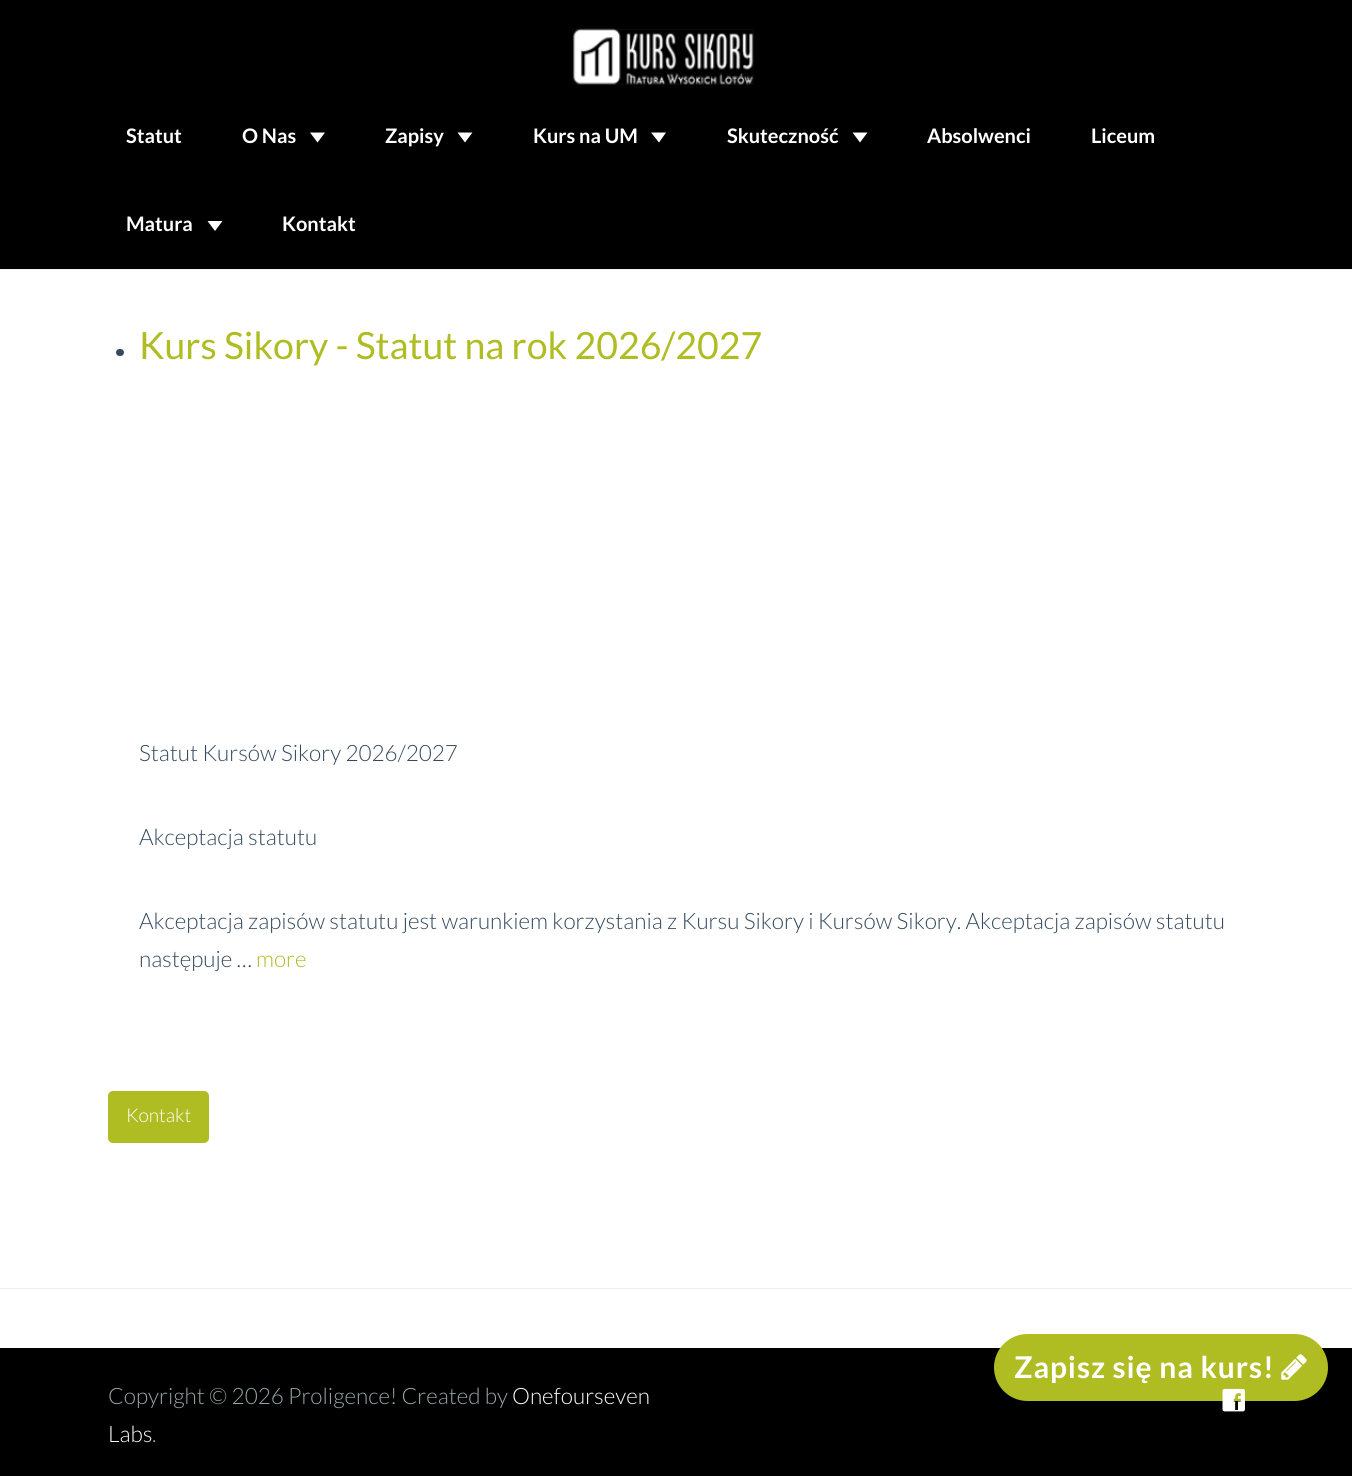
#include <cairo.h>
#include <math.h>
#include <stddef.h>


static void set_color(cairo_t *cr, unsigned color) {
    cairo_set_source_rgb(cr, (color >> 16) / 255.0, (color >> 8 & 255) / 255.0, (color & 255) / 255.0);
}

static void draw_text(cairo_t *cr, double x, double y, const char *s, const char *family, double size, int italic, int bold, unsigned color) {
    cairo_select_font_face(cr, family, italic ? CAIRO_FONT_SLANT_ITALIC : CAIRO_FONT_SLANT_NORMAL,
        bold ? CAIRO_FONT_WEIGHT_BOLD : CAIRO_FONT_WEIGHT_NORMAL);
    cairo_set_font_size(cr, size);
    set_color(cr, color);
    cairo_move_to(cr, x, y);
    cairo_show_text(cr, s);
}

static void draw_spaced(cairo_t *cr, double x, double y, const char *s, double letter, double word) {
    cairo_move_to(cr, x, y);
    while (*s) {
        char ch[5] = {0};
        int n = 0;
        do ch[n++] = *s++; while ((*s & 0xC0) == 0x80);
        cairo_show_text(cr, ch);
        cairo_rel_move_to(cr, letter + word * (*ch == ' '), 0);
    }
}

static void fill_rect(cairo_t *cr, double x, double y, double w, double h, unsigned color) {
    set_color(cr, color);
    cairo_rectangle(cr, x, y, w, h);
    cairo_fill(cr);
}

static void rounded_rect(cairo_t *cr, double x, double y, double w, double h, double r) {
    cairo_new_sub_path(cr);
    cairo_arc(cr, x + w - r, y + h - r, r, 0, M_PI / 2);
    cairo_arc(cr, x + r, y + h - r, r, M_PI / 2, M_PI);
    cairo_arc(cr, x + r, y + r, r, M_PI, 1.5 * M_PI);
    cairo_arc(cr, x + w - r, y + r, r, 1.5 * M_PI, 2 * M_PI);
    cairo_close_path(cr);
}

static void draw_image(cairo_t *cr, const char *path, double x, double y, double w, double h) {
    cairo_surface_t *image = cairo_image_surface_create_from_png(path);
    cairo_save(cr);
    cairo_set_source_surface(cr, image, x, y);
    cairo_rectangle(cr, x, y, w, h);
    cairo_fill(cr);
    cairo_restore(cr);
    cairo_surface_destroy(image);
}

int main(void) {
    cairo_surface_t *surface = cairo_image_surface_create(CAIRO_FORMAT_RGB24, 1352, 1476);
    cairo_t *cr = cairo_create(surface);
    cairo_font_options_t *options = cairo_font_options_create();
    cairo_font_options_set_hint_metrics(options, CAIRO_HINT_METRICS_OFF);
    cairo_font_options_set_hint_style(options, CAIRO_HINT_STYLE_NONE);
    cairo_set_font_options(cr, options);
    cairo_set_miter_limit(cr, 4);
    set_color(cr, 0xFFFFFF);
    cairo_paint(cr);
    fill_rect(cr, 0, 0, 1352, 269, 0x000000);
    fill_rect(cr, 0, 269, 1352, 1, 0xECF0F1);
    draw_image(cr, "assets/img1.png", 572, 28, 182, 57);
    draw_text(cr, 126, 143, "Statut", "Lato", 20, 0, 1, 0xFFFFFF);
    draw_text(cr, 242, 143, "O Nas", "Lato", 20, 0, 1, 0xFFFFFF);
    cairo_new_path(cr);
    cairo_move_to(cr, 310, 132.5);
    cairo_line_to(cr, 325, 132.5);
    cairo_line_to(cr, 317.5, 142.5);
    cairo_close_path(cr);
    cairo_fill(cr);
    draw_text(cr, 385, 143, "Zapisy", "Lato", 20, 0, 1, 0xFFFFFF);
    cairo_new_path(cr);
    cairo_move_to(cr, 457.5, 132.5);
    cairo_line_to(cr, 472.5, 132.5);
    cairo_line_to(cr, 465, 142.5);
    cairo_close_path(cr);
    cairo_fill(cr);
    draw_text(cr, 533, 143, "Kurs na UM", "Lato", 20, 0, 1, 0xFFFFFF);
    cairo_new_path(cr);
    cairo_move_to(cr, 651, 132.5);
    cairo_line_to(cr, 666, 132.5);
    cairo_line_to(cr, 659, 142.5);
    cairo_close_path(cr);
    cairo_fill(cr);
    draw_text(cr, 727, 143, "Skuteczność", "Lato", 20, 0, 1, 0xFFFFFF);
    cairo_new_path(cr);
    cairo_move_to(cr, 852.5, 132.5);
    cairo_line_to(cr, 867.5, 132.5);
    cairo_line_to(cr, 860, 142.5);
    cairo_close_path(cr);
    cairo_fill(cr);
    draw_text(cr, 927, 143, "Absolwenci", "Lato", 20, 0, 1, 0xFFFFFF);
    draw_text(cr, 1091, 143, "Liceum", "Lato", 20, 0, 1, 0xFFFFFF);
    draw_text(cr, 126, 231, "Matura", "Lato", 20, 0, 1, 0xFFFFFF);
    cairo_new_path(cr);
    cairo_move_to(cr, 207.5, 221);
    cairo_line_to(cr, 222.5, 221);
    cairo_line_to(cr, 215, 231);
    cairo_close_path(cr);
    cairo_fill(cr);
    draw_text(cr, 282, 231, "Kontakt", "Lato", 20, 0, 1, 0xFFFFFF);
    set_color(cr, 0x34495E);
    rounded_rect(cr, 116, 349, 8, 7, 3.5);
    cairo_fill(cr);
    draw_text(cr, 139, 359, "Kurs Sikory - Statut na rok 2026/2027", "Lato", 37.5, 0, 0, 0xAFBD22);
    draw_text(cr, 139, 761, "Statut Kursów Sikory 2026/2027", "Lato Light", 22.5, 0, 0, 0x34495E);
    draw_text(cr, 139, 845, "Akceptacja statutu", "Lato Light", 22.5, 0, 0, 0x34495E);
    draw_text(cr, 139, 929, "Akceptacja zapisów statutu jest warunkiem korzystania z Kursu Sikory i Kursów Sikory. Akceptacja zapisów statutu", "Lato Light", 22.5, 0, 0, 0x34495E);
    draw_text(cr, 139, 967, "następuje …", "Lato Light", 22.5, 0, 0, 0x34495E);
    draw_text(cr, 256, 967, "more", "Lato Light", 22.5, 0, 0, 0xAFBD22);
    rounded_rect(cr, 108, 1091, 101, 52, 5);
    cairo_fill(cr);
    draw_text(cr, 126, 1122, "Kontakt", "Lato Light", 19, 0, 0, 0xFFFFFF);
    fill_rect(cr, 0, 1288, 1352, 1, 0xEEEEEE);
    fill_rect(cr, 0, 1348, 1352, 128, 0x000000);
    set_color(cr, 0xAFBD22);
    rounded_rect(cr, 994, 1334, 334, 67, 33.5);
    cairo_fill(cr);
    cairo_select_font_face(cr, "Lato", CAIRO_FONT_SLANT_NORMAL, CAIRO_FONT_WEIGHT_BOLD);
    cairo_set_font_size(cr, 30);
    set_color(cr, 0xFFFFFF);
    draw_spaced(cr, 1014, 1378, "Zapisz się na kurs!", 0.9, 0);
    draw_image(cr, "assets/img2.png", 1281, 1354, 26, 26);
    draw_text(cr, 108, 1404, "Copyright © 2026 Proligence! Created by", "Lato Light", 22.5, 0, 0, 0x95A5A6);
    draw_text(cr, 512, 1404, "Onefourseven", "Lato Light", 22.5, 0, 0, 0xFFFFFF);
    draw_text(cr, 108, 1442, "Labs", "Lato Light", 22.5, 0, 0, 0xFFFFFF);
    draw_text(cr, 152, 1442, ".", "Lato Light", 22.5, 0, 0, 0x95A5A6);
    draw_image(cr, "assets/img3.png", 1222, 1388, 23, 24);
    cairo_surface_write_to_png(surface, "output.png");
    cairo_font_options_destroy(options);
    cairo_destroy(cr);
    cairo_surface_destroy(surface);
    return 0;
}
